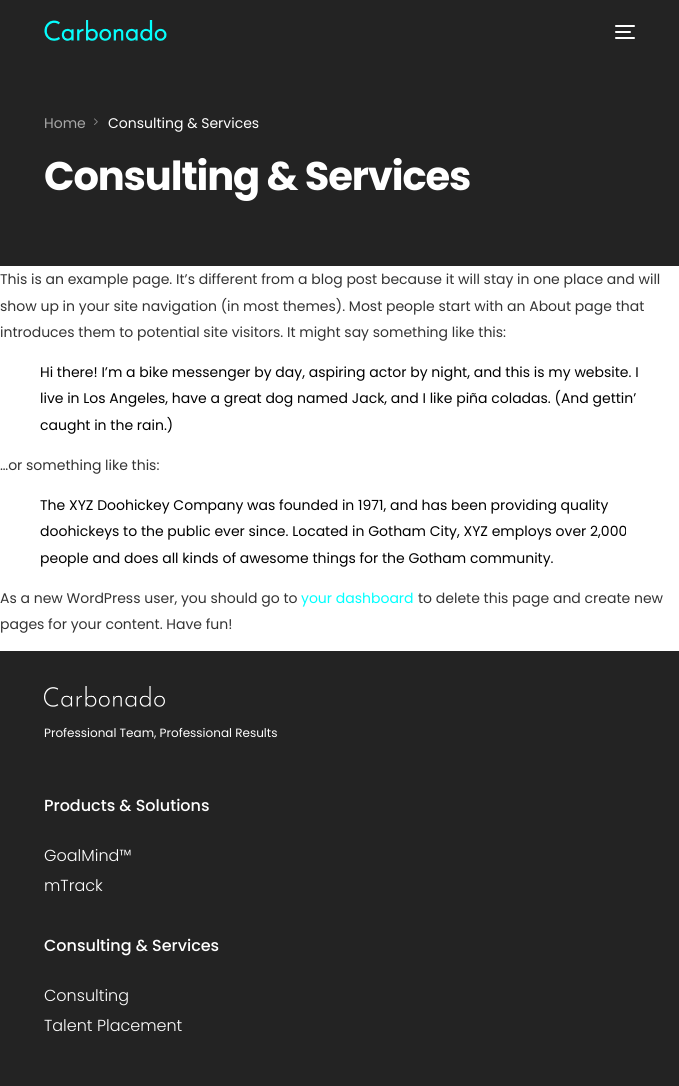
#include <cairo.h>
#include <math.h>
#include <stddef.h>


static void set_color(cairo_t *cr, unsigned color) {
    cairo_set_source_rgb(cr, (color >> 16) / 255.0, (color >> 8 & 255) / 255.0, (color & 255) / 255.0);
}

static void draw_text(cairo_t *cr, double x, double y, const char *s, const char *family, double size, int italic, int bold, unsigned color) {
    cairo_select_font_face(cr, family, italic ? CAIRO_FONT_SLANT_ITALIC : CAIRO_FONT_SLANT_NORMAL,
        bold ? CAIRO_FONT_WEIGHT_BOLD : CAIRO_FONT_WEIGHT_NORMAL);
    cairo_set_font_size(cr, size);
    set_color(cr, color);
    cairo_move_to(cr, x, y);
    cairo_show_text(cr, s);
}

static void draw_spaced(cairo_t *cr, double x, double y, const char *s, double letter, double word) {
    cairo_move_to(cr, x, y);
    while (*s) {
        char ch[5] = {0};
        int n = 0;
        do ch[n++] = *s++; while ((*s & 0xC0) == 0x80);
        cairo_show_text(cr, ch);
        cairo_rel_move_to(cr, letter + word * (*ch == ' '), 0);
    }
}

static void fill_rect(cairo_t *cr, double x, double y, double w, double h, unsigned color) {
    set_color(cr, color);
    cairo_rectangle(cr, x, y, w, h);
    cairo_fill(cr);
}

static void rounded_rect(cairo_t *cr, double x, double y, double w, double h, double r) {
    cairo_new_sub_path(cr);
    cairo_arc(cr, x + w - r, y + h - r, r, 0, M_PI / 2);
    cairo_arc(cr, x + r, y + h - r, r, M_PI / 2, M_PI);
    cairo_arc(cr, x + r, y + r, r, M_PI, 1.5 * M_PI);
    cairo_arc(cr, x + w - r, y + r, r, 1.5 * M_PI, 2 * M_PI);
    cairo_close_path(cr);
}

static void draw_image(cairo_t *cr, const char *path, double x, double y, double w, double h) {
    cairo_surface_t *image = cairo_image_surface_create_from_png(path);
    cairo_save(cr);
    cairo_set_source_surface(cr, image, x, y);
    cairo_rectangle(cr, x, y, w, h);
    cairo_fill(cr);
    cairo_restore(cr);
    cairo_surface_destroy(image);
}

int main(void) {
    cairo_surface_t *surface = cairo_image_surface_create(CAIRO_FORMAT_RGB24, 679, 1086);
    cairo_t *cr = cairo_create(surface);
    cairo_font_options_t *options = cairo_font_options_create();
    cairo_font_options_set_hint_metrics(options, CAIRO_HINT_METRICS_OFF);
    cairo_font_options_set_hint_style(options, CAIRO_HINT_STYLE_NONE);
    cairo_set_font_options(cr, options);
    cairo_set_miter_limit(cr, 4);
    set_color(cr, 0xFFFFFF);
    cairo_paint(cr);
    fill_rect(cr, 0, 0, 679, 266, 0x232323);
    draw_image(cr, "assets/img1.png", 44, 20, 123, 21);
    set_color(cr, 0xFFFFFF);
    rounded_rect(cr, 615, 25, 20, 2, 1);
    cairo_fill(cr);
    rounded_rect(cr, 615, 31, 16, 2, 1);
    cairo_fill(cr);
    rounded_rect(cr, 615, 37, 20, 2, 1);
    cairo_fill(cr);
    draw_text(cr, 44, 128, "Home", "Poppins", 14, 0, 0, 0xA7A7A7);
    draw_image(cr, "assets/img2.png", 94, 118, 4, 7);
    draw_text(cr, 108, 128, "Consulting & Services", "Poppins", 14, 0, 0, 0xFFFFFF);
    cairo_select_font_face(cr, "Poppins", CAIRO_FONT_SLANT_NORMAL, CAIRO_FONT_WEIGHT_BOLD);
    cairo_set_font_size(cr, 40);
    draw_spaced(cr, 44, 190, "Consulting & Services", -1.1, 0);
    draw_text(cr, 0, 284, "This is an example page. It’s different from a blog post because it will stay in one place and will", "Poppins", 14, 0, 0, 0x333333);
    draw_text(cr, 0, 311, "show up in your site navigation (in most themes). Most people start with an About page that", "Poppins", 14, 0, 0, 0x333333);
    draw_text(cr, 0, 337, "introduces them to potential site visitors. It might say something like this:", "Poppins", 14, 0, 0, 0x333333);
    draw_text(cr, 40, 377, "Hi there! I’m a bike messenger by day, aspiring actor by night, and this is my website. I", "Poppins", 14, 0, 0, 0x000000);
    draw_text(cr, 40, 403, "live in Los Angeles, have a great dog named Jack, and I like piña coladas. (And gettin’", "Poppins", 14, 0, 0, 0x000000);
    draw_text(cr, 40, 430, "caught in the rain.)", "Poppins", 14, 0, 0, 0x000000);
    draw_text(cr, 0, 470, "…or something like this:", "Poppins", 14, 0, 0, 0x333333);
    draw_text(cr, 40, 510, "The XYZ Doohickey Company was founded in 1971, and has been providing quality", "Poppins", 14, 0, 0, 0x000000);
    draw_text(cr, 40, 536, "doohickeys to the public ever since. Located in Gotham City, XYZ employs over 2,000", "Poppins", 14, 0, 0, 0x000000);
    draw_text(cr, 40, 563, "people and does all kinds of awesome things for the Gotham community.", "Poppins", 14, 0, 0, 0x000000);
    draw_text(cr, 0, 603, "As a new WordPress user, you should go to", "Poppins", 14, 0, 0, 0x333333);
    draw_text(cr, 301, 603, "your dashboard", "Poppins", 14, 0, 0, 0x00FFFF);
    draw_text(cr, 418, 603, "to delete this page and create new", "Poppins", 14, 0, 0, 0x333333);
    draw_text(cr, 0, 629, "pages for your content. Have fun!", "Poppins", 14, 0, 0, 0x333333);
    fill_rect(cr, 0, 651, 679, 435, 0x232323);
    draw_image(cr, "assets/img3.png", 44, 686, 121, 21);
    draw_text(cr, 44, 737, "Professional Team, Professional Results", "Poppins", 12, 0, 0, 0xFFFFFF);
    draw_text(cr, 44, 811, "Products & Solutions", "Poppins Medium", 16, 0, 0, 0xFFFFFF);
    draw_text(cr, 44, 861, "GoalMind™", "Poppins Light", 16, 0, 0, 0xFFFFFF);
    draw_text(cr, 44, 891, "mTrack", "Poppins Light", 16, 0, 0, 0xFFFFFF);
    draw_text(cr, 44, 951, "Consulting & Services", "Poppins Medium", 16, 0, 0, 0xFFFFFF);
    draw_text(cr, 44, 1001, "Consulting", "Poppins Light", 16, 0, 0, 0xFFFFFF);
    draw_text(cr, 44, 1031, "Talent Placement", "Poppins Light", 16, 0, 0, 0xFFFFFF);
    cairo_surface_write_to_png(surface, "output.png");
    cairo_font_options_destroy(options);
    cairo_destroy(cr);
    cairo_surface_destroy(surface);
    return 0;
}
